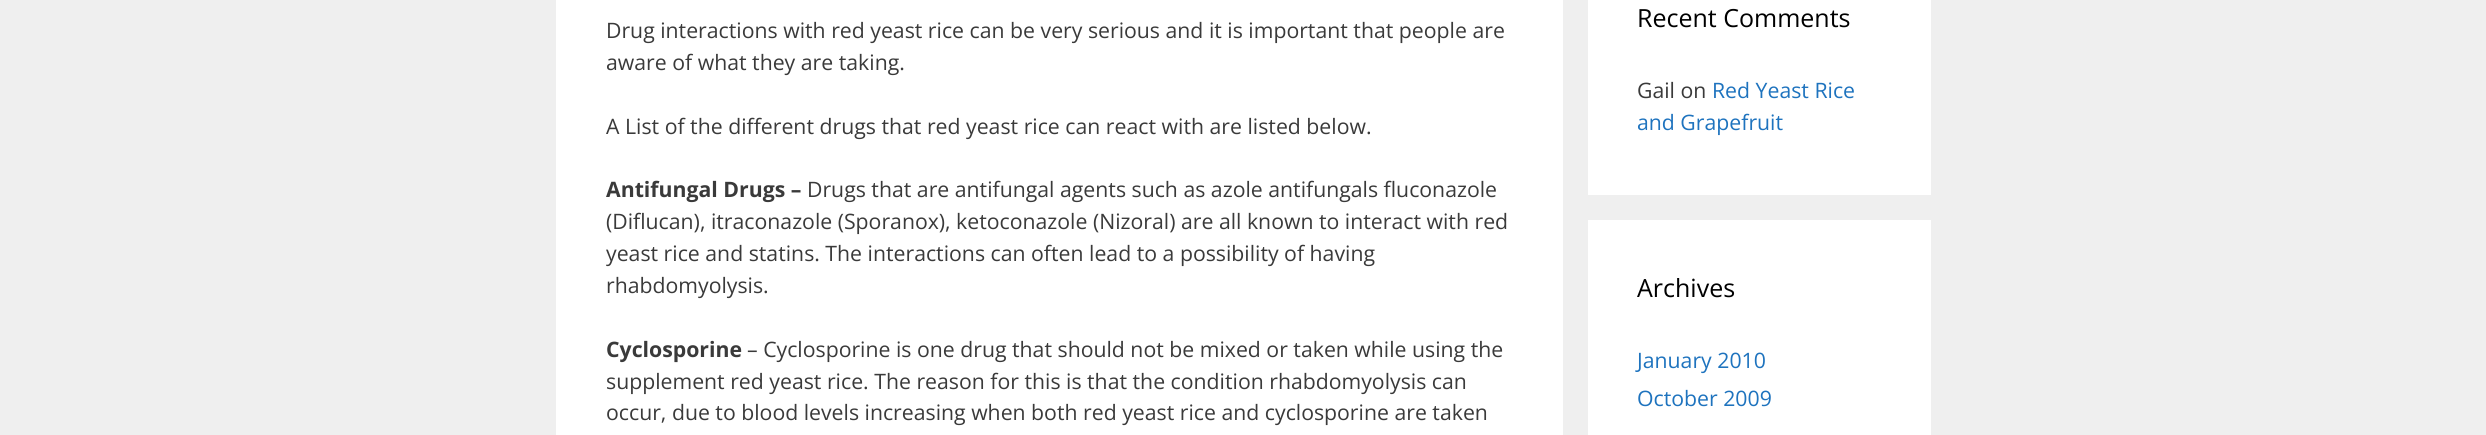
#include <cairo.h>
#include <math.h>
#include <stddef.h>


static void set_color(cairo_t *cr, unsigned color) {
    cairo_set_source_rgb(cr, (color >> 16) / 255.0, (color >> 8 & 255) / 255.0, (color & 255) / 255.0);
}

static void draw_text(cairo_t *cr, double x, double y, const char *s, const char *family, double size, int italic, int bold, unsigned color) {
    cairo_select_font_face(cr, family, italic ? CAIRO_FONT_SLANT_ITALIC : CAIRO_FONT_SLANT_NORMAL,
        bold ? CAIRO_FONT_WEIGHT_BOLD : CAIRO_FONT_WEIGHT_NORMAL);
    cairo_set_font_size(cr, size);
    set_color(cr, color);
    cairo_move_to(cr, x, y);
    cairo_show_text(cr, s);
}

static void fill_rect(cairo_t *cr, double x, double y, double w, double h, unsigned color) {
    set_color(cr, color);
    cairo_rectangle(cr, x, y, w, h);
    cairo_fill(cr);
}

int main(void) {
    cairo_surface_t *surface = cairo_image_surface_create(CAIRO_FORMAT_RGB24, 2486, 435);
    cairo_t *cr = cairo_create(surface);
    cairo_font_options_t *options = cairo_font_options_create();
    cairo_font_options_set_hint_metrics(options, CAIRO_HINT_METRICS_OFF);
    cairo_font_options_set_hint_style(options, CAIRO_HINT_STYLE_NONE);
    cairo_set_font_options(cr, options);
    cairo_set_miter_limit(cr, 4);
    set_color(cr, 0xEFEFEF);
    cairo_paint(cr);
    fill_rect(cr, 556, 0, 1007, 435, 0xFFFFFF);
    draw_text(cr, 606, 38, "Drug interactions with red yeast rice can be very serious and it is important that people are", "Open Sans", 21.25, 0, 0, 0x3A3A3A);
    draw_text(cr, 606, 70, "aware of what they are taking.", "Open Sans", 21.25, 0, 0, 0x3A3A3A);
    draw_text(cr, 606, 134, "A List of the different drugs that red yeast rice can react with are listed below.", "Open Sans", 21.25, 0, 0, 0x3A3A3A);
    draw_text(cr, 606, 197, "Antifungal Drugs –", "Open Sans", 21.25, 0, 1, 0x3A3A3A);
    draw_text(cr, 807, 197, "Drugs that are antifungal agents such as azole antifungals fluconazole", "Open Sans", 21.25, 0, 0, 0x3A3A3A);
    draw_text(cr, 606, 229, "(Diflucan), itraconazole (Sporanox), ketoconazole (Nizoral) are all known to interact with red", "Open Sans", 21.25, 0, 0, 0x3A3A3A);
    draw_text(cr, 606, 261, "yeast rice and statins. The interactions can often lead to a possibility of having", "Open Sans", 21.25, 0, 0, 0x3A3A3A);
    draw_text(cr, 606, 293, "rhabdomyolysis.", "Open Sans", 21.25, 0, 0, 0x3A3A3A);
    draw_text(cr, 606, 357, "Cyclosporine", "Open Sans", 21.25, 0, 1, 0x3A3A3A);
    draw_text(cr, 747, 357, "– Cyclosporine is one drug that should not be mixed or taken while using the", "Open Sans", 21.25, 0, 0, 0x3A3A3A);
    draw_text(cr, 606, 389, "supplement red yeast rice. The reason for this is that the condition rhabdomyolysis can", "Open Sans", 21.25, 0, 0, 0x3A3A3A);
    draw_text(cr, 606, 420, "occur, due to blood levels increasing when both red yeast rice and cyclosporine are taken", "Open Sans", 21.25, 0, 0, 0x3A3A3A);
    fill_rect(cr, 1588, 0, 343, 195, 0xFFFFFF);
    draw_text(cr, 1637, 27, "Recent Comments", "Open Sans", 25, 0, 0, 0x000000);
    draw_text(cr, 1637, 98, "Gail on", "Open Sans", 21.25, 0, 0, 0x3A3A3A);
    draw_text(cr, 1712, 98, "Red Yeast Rice", "Open Sans", 21.25, 0, 0, 0x1E73BE);
    draw_text(cr, 1637, 130, "and Grapefruit", "Open Sans", 21.25, 0, 0, 0x1E73BE);
    fill_rect(cr, 1588, 220, 343, 215, 0xFFFFFF);
    draw_text(cr, 1637, 297, "Archives", "Open Sans", 25, 0, 0, 0x000000);
    draw_text(cr, 1637, 368, "January 2010", "Open Sans", 21.25, 0, 0, 0x1E73BE);
    draw_text(cr, 1637, 406, "October 2009", "Open Sans", 21.25, 0, 0, 0x1E73BE);
    cairo_surface_write_to_png(surface, "output.png");
    cairo_font_options_destroy(options);
    cairo_destroy(cr);
    cairo_surface_destroy(surface);
    return 0;
}
